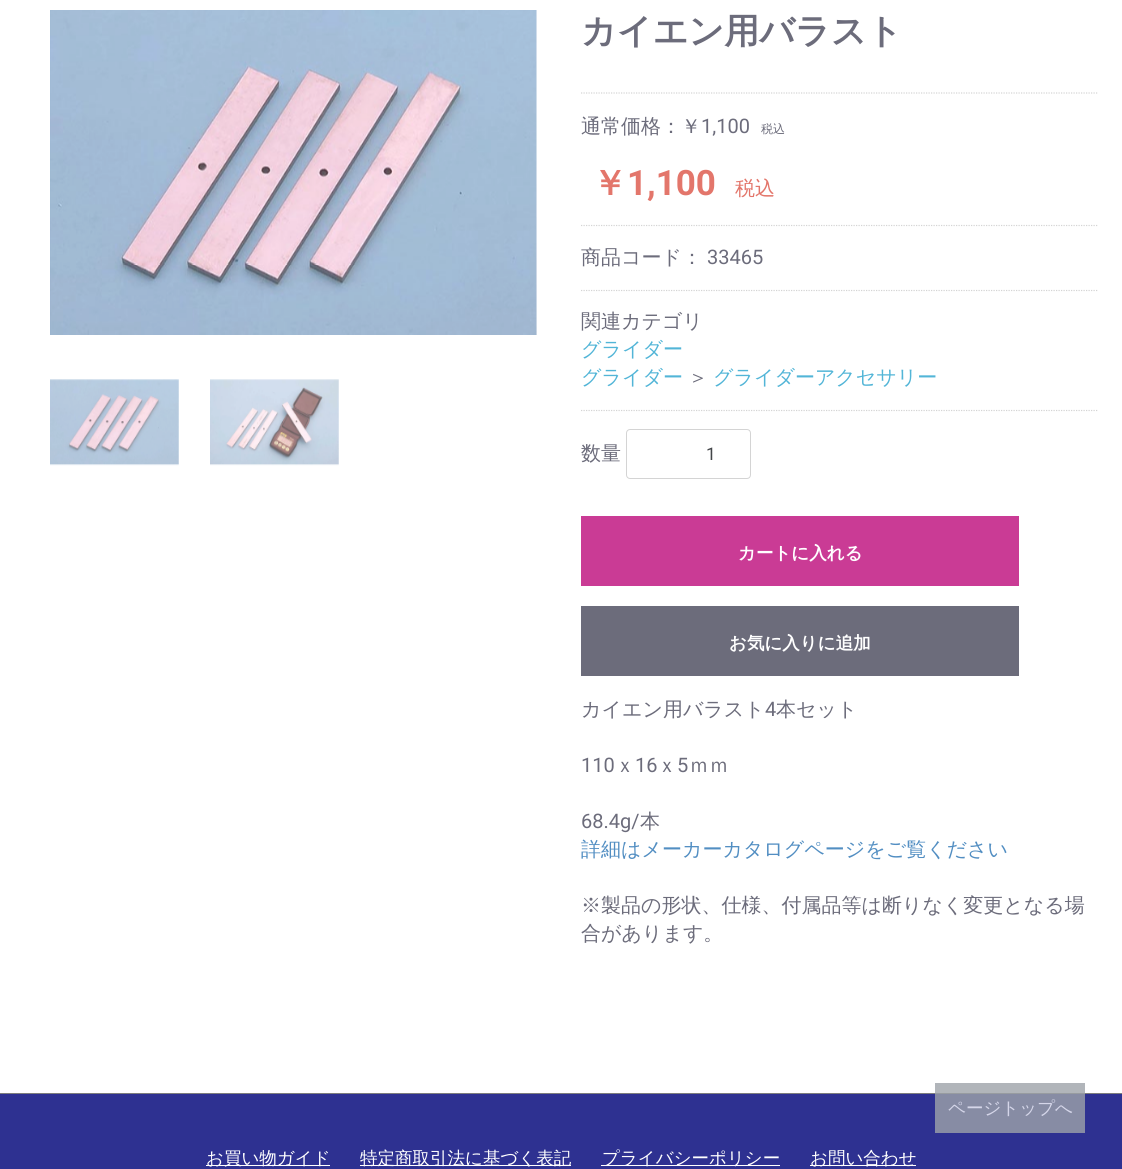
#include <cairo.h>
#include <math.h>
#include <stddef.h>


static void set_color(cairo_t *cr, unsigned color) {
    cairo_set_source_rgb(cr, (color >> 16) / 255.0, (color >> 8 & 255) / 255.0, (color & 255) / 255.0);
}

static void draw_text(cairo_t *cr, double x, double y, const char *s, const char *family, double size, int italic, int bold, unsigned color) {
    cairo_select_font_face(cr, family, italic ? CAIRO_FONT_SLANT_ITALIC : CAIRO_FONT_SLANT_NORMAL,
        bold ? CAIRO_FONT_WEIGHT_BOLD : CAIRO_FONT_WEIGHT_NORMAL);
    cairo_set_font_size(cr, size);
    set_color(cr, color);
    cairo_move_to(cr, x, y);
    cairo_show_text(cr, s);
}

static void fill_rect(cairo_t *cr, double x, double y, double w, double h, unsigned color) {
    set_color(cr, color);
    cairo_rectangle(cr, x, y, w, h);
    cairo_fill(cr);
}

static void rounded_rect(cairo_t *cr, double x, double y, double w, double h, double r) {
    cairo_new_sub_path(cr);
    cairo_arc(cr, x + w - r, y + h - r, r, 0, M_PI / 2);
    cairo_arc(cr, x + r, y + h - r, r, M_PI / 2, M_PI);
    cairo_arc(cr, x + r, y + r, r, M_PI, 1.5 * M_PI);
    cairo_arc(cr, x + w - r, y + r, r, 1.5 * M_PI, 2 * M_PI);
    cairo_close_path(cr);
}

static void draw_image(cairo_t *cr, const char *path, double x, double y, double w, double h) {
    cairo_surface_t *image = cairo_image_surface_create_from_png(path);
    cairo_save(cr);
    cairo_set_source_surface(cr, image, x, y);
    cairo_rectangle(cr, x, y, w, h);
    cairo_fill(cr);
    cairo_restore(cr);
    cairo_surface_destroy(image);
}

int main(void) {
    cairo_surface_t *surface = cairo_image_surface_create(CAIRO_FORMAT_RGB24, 1122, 1169);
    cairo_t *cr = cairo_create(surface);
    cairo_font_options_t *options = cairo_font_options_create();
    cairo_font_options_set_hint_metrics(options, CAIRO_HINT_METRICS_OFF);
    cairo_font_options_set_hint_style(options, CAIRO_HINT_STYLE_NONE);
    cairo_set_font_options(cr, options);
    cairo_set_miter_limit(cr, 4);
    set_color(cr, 0xFFFFFF);
    cairo_paint(cr);
    fill_rect(cr, 935, 1083, 150, 10, 0xB1B5BA);
    draw_image(cr, "assets/img1.png", 50, 10, 1, 325);
    draw_image(cr, "assets/img2.png", 50, 10, 487, 325);
    draw_image(cr, "assets/img3.png", 536, 10, 1, 325);
    draw_image(cr, "assets/img4.png", 50, 379, 129, 87);
    draw_image(cr, "assets/img5.png", 210, 379, 129, 87);
    draw_text(cr, 581, 43, "カイエン用バラスト", "WenQuanYi Zen Hei", 35, 0, 1, 0x6C6C7B);
    cairo_new_path(cr);
    cairo_move_to(cr, 581, 93);
    cairo_line_to(cr, 1097.5, 93);
    set_color(cr, 0xD4D4D4);
    cairo_set_line_width(cr, 1.2);
    cairo_set_dash(cr, (double[]){1.25, 1.25}, 2, 0);
    cairo_stroke(cr);
    draw_text(cr, 581, 133, "通常価格：￥", "WenQuanYi Zen Hei Medium", 20, 0, 0, 0x6C6C7B);
    draw_text(cr, 701, 133, "1,100", "Roboto", 20, 0, 0, 0x6C6C7B);
    draw_text(cr, 761, 133, "税込", "WenQuanYi Zen Hei Medium", 12, 0, 0, 0x6C6C7B);
    cairo_new_path(cr);
    cairo_move_to(cr, 581, 225.5);
    cairo_line_to(cr, 1097.5, 225.5);
    set_color(cr, 0xD4D4D4);
    cairo_stroke(cr);
    draw_text(cr, 592, 195, "￥", "WenQuanYi Zen Hei", 35, 0, 1, 0xE3766B);
    draw_text(cr, 627, 195, "1,100", "Roboto", 35, 0, 1, 0xE3766B);
    draw_text(cr, 735, 195, "税込", "WenQuanYi Zen Hei Medium", 20, 0, 0, 0xE3766B);
    cairo_new_path(cr);
    cairo_move_to(cr, 581, 290.5);
    cairo_line_to(cr, 1097.5, 290.5);
    set_color(cr, 0xD4D4D4);
    cairo_stroke(cr);
    draw_text(cr, 581, 264, "商品コード：", "WenQuanYi Zen Hei Medium", 20, 0, 0, 0x6C6C7B);
    draw_text(cr, 707, 264, "33465", "Roboto", 20, 0, 0, 0x6C6C7B);
    cairo_new_path(cr);
    cairo_move_to(cr, 581, 410.5);
    cairo_line_to(cr, 1097.5, 410.5);
    set_color(cr, 0xD4D4D4);
    cairo_stroke(cr);
    draw_text(cr, 581, 328, "関連カテゴリ", "WenQuanYi Zen Hei Medium", 20, 0, 0, 0x6C6C7B);
    draw_text(cr, 581, 356, "グライダー", "WenQuanYi Zen Hei Medium", 20, 0, 0, 0x52B5D7);
    draw_text(cr, 581, 384, "グライダー", "WenQuanYi Zen Hei Medium", 20, 0, 0, 0x52B5D7);
    draw_text(cr, 688, 384, "＞", "WenQuanYi Zen Hei Medium", 20, 0, 0, 0x6C6C7B);
    draw_text(cr, 713, 384, "グライダーアクセサリー", "WenQuanYi Zen Hei Medium", 20, 0, 0, 0x52B5D7);
    draw_text(cr, 581, 460, "数量", "WenQuanYi Zen Hei Medium", 20, 0, 0, 0x6C6C7B);
    rounded_rect(cr, 626.5, 429.5, 124, 49, 3.5);
    set_color(cr, 0xD4D4D4);
    cairo_set_line_width(cr, 1);
    cairo_set_dash(cr, NULL, 0, 0);
    cairo_stroke(cr);
    draw_text(cr, 706, 460, "1", "Roboto", 17.5, 0, 0, 0x434649);
    fill_rect(cr, 581, 516, 438, 70, 0xCA3B95);
    draw_text(cr, 738, 559, "カートに入れる", "WenQuanYi Zen Hei", 17.5, 0, 1, 0xFFFFFF);
    fill_rect(cr, 581, 606, 438, 70, 0x6C6C7B);
    draw_text(cr, 729, 649, "お気に入りに追加", "WenQuanYi Zen Hei", 17.5, 0, 1, 0xFFFFFF);
    draw_text(cr, 581, 716, "カイエン用バラスト", "WenQuanYi Zen Hei Medium", 20, 0, 0, 0x6C6C7B);
    draw_text(cr, 765, 716, "4", "Roboto", 20, 0, 0, 0x6C6C7B);
    draw_text(cr, 776, 716, "本セット", "WenQuanYi Zen Hei Medium", 20, 0, 0, 0x6C6C7B);
    draw_text(cr, 581, 772, "110", "Roboto", 20, 0, 0, 0x6C6C7B);
    draw_text(cr, 615, 772, "ｘ", "WenQuanYi Zen Hei Medium", 20, 0, 0, 0x6C6C7B);
    draw_text(cr, 635, 772, "16", "Roboto", 20, 0, 0, 0x6C6C7B);
    draw_text(cr, 657, 772, "ｘ", "WenQuanYi Zen Hei Medium", 20, 0, 0, 0x6C6C7B);
    draw_text(cr, 677, 772, "5", "Roboto", 20, 0, 0, 0x6C6C7B);
    draw_text(cr, 689, 772, "ｍｍ", "WenQuanYi Zen Hei Medium", 20, 0, 0, 0x6C6C7B);
    draw_text(cr, 581, 828, "68.4g/", "Roboto", 20, 0, 0, 0x6C6C7B);
    draw_text(cr, 640, 828, "本", "WenQuanYi Zen Hei Medium", 20, 0, 0, 0x6C6C7B);
    draw_text(cr, 581, 856, "詳細はメーカーカタログページをご覧ください", "WenQuanYi Zen Hei Medium", 20, 0, 0, 0x528EC2);
    draw_text(cr, 581, 912, "※製品の形状、仕様、付属品等は断りなく変更となる場", "WenQuanYi Zen Hei Medium", 20, 0, 0, 0x6C6C7B);
    draw_text(cr, 581, 940, "合があります。", "WenQuanYi Zen Hei Medium", 20, 0, 0, 0x6C6C7B);
    fill_rect(cr, 0, 1094, 1122, 75, 0x2E3191);
    fill_rect(cr, 935, 1094, 150, 39, 0x878CA4);
    fill_rect(cr, 0, 1093, 1122, 1, 0x7D7D7D);
    fill_rect(cr, 935, 1093, 150, 1, 0x979BA0);
    fill_rect(cr, 206, 1165, 124, 1, 0xFFFFFF);
    draw_text(cr, 206, 1164, "お買い物ガイド", "WenQuanYi Zen Hei Medium", 17.5, 0, 0, 0xFFFFFF);
    fill_rect(cr, 360, 1165, 211, 1, 0xFFFFFF);
    draw_text(cr, 360, 1164, "特定商取引法に基づく表記", "WenQuanYi Zen Hei Medium", 17.5, 0, 0, 0xFFFFFF);
    fill_rect(cr, 601, 1165, 179, 1, 0xFFFFFF);
    draw_text(cr, 602, 1164, "プライバシーポリシー", "WenQuanYi Zen Hei Medium", 17.5, 0, 0, 0xFFFFFF);
    fill_rect(cr, 810, 1165, 106, 1, 0xFFFFFF);
    draw_text(cr, 810, 1164, "お問い合わせ", "WenQuanYi Zen Hei Medium", 17.5, 0, 0, 0xFFFFFF);
    draw_text(cr, 948, 1114, "ページトップへ", "WenQuanYi Zen Hei Medium", 17.5, 0, 0, 0xD5D6E9);
    cairo_surface_write_to_png(surface, "output.png");
    cairo_font_options_destroy(options);
    cairo_destroy(cr);
    cairo_surface_destroy(surface);
    return 0;
}
